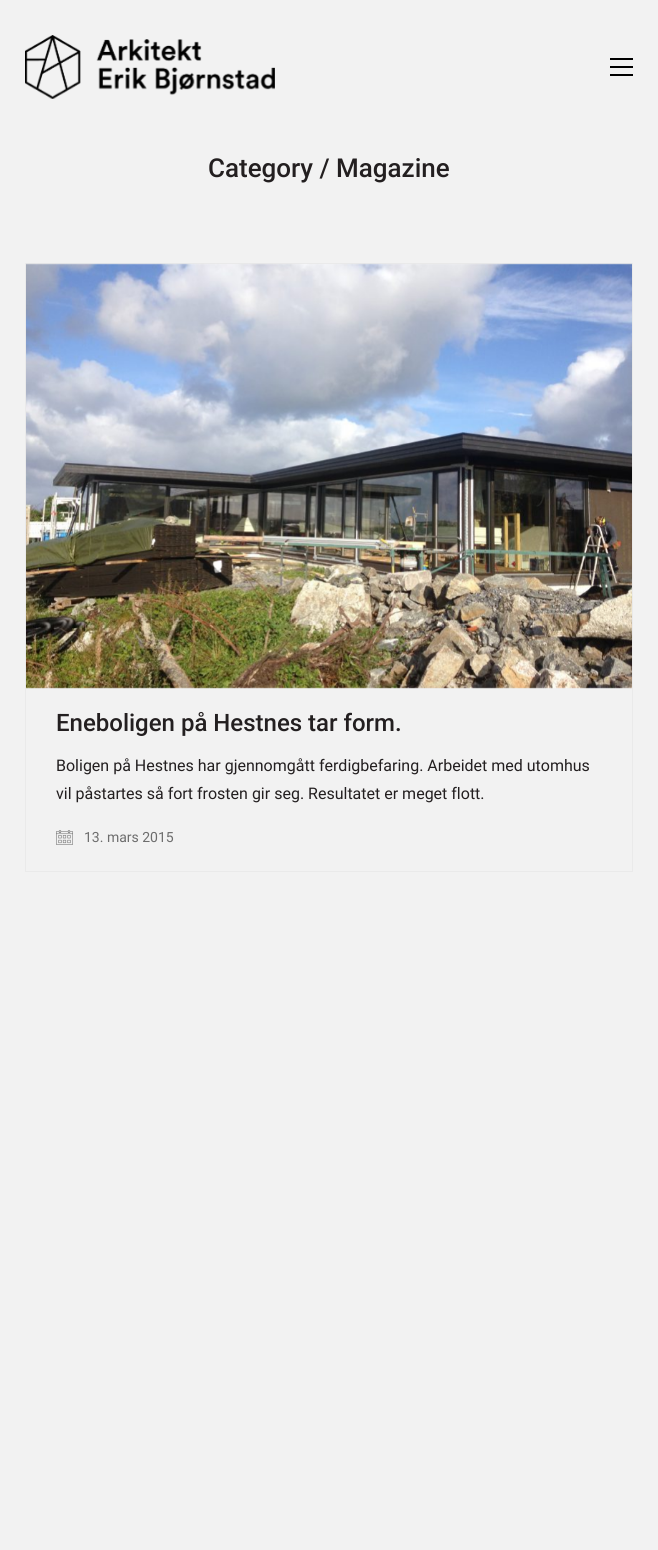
#include <cairo.h>
#include <math.h>
#include <stddef.h>


static void set_color(cairo_t *cr, unsigned color) {
    cairo_set_source_rgb(cr, (color >> 16) / 255.0, (color >> 8 & 255) / 255.0, (color & 255) / 255.0);
}

static void draw_text(cairo_t *cr, double x, double y, const char *s, const char *family, double size, int italic, int bold, unsigned color) {
    cairo_select_font_face(cr, family, italic ? CAIRO_FONT_SLANT_ITALIC : CAIRO_FONT_SLANT_NORMAL,
        bold ? CAIRO_FONT_WEIGHT_BOLD : CAIRO_FONT_WEIGHT_NORMAL);
    cairo_set_font_size(cr, size);
    set_color(cr, color);
    cairo_move_to(cr, x, y);
    cairo_show_text(cr, s);
}

static void fill_rect(cairo_t *cr, double x, double y, double w, double h, unsigned color) {
    set_color(cr, color);
    cairo_rectangle(cr, x, y, w, h);
    cairo_fill(cr);
}

static void draw_image(cairo_t *cr, const char *path, double x, double y, double w, double h) {
    cairo_surface_t *image = cairo_image_surface_create_from_png(path);
    cairo_save(cr);
    cairo_set_source_surface(cr, image, x, y);
    cairo_rectangle(cr, x, y, w, h);
    cairo_fill(cr);
    cairo_restore(cr);
    cairo_surface_destroy(image);
}

int main(void) {
    cairo_surface_t *surface = cairo_image_surface_create(CAIRO_FORMAT_RGB24, 658, 1550);
    cairo_t *cr = cairo_create(surface);
    cairo_font_options_t *options = cairo_font_options_create();
    cairo_font_options_set_hint_metrics(options, CAIRO_HINT_METRICS_OFF);
    cairo_font_options_set_hint_style(options, CAIRO_HINT_STYLE_NONE);
    cairo_set_font_options(cr, options);
    cairo_set_miter_limit(cr, 4);
    set_color(cr, 0xF2F2F2);
    cairo_paint(cr);
    draw_image(cr, "assets/img1.png", 25, 35, 250, 64);
    fill_rect(cr, 610, 58, 23, 2, 0x000000);
    fill_rect(cr, 610, 66, 23, 2, 0x000000);
    fill_rect(cr, 610, 74, 23, 2, 0x000000);
    draw_text(cr, 208, 177, "Category / Magazine", "Roboto Medium", 26, 0, 0, 0x231F20);
    fill_rect(cr, 25, 263, 608, 1, 0xEAEAEA);
    fill_rect(cr, 632, 263, 1, 425, 0xEAEAEA);
    fill_rect(cr, 25, 263, 1, 425, 0xEAEAEA);
    draw_image(cr, "assets/img2.png", 26, 263, 606, 426);
    fill_rect(cr, 632, 688, 1, 184, 0xEAEAEA);
    fill_rect(cr, 25, 871, 608, 1, 0xEAEAEA);
    fill_rect(cr, 25, 688, 1, 184, 0xEAEAEA);
    draw_text(cr, 56, 731, "Eneboligen på Hestnes tar form.", "Roboto Medium", 24, 0, 0, 0x231F20);
    draw_text(cr, 56, 771, "Boligen på Hestnes har gjennomgått ferdigbefaring. Arbeidet med utomhus", "Roboto", 16, 0, 0, 0x231F20);
    draw_text(cr, 56, 799, "vil påstartes så fort frosten gir seg. Resultatet er meget flott.", "Roboto", 16, 0, 0, 0x231F20);
    draw_image(cr, "assets/img3.png", 56, 830, 17, 15);
    draw_text(cr, 84, 842, "13. mars 2015", "Roboto", 14, 0, 0, 0x6D6D6D);
    cairo_surface_write_to_png(surface, "output.png");
    cairo_font_options_destroy(options);
    cairo_destroy(cr);
    cairo_surface_destroy(surface);
    return 0;
}
